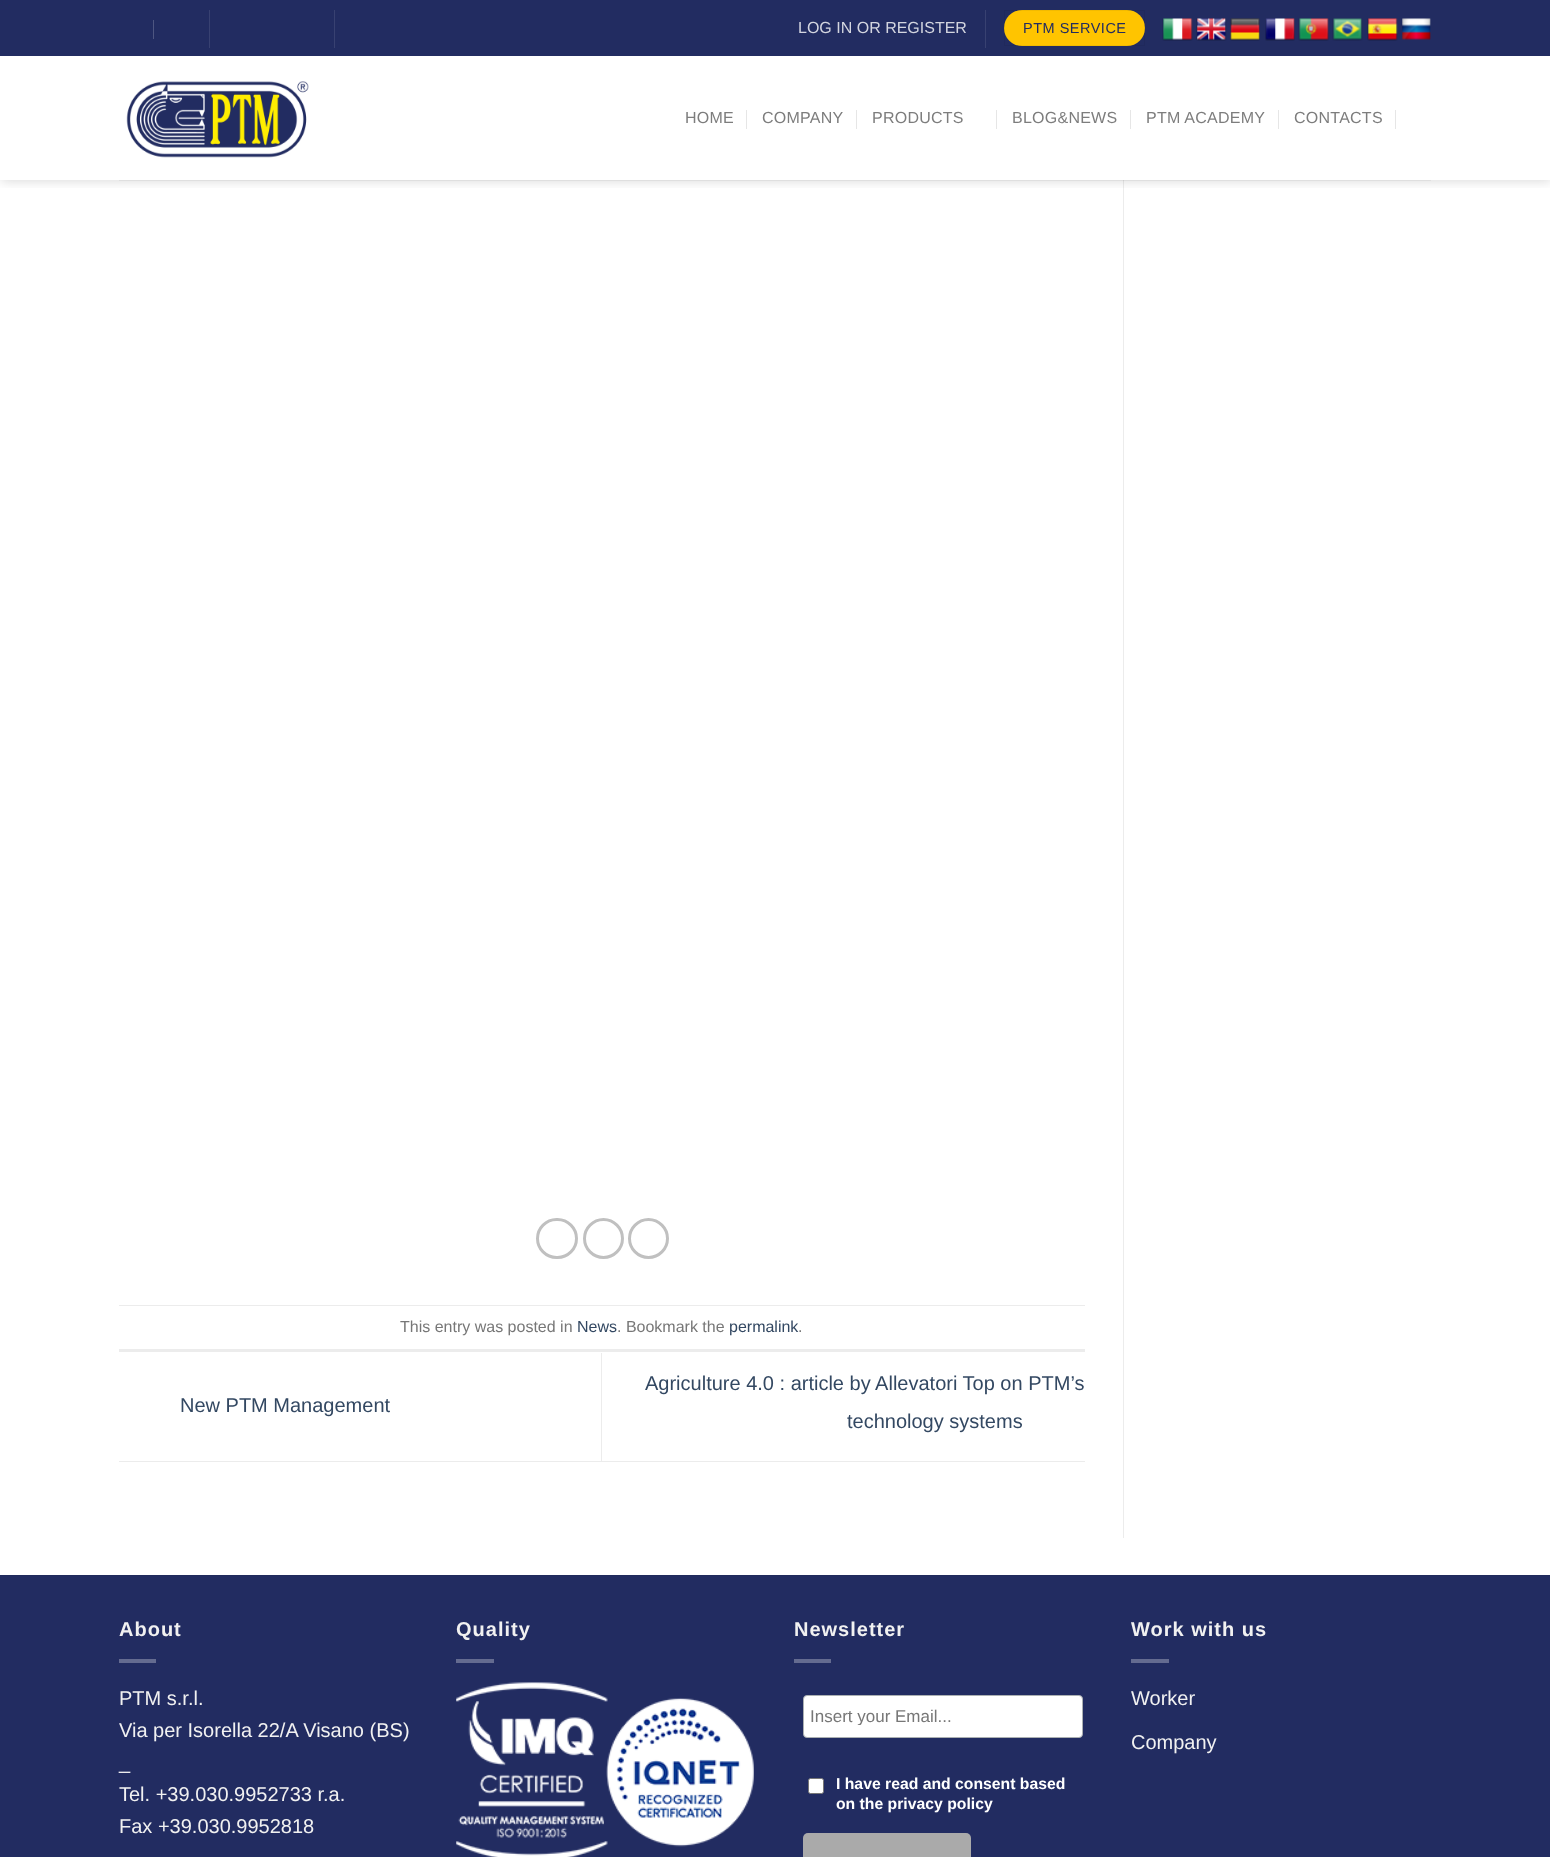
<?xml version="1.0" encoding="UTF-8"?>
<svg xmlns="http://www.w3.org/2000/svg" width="1550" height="1857">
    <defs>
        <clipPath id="clip1"><rect x="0" y="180" width="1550" height="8"/></clipPath>
        <filter id="blur1" x="-50%" y="-200%" width="200%" height="500%"><feGaussianBlur stdDeviation="6"/></filter>
        <clipPath id="clip2"><rect x="804" y="1706" width="277" height="19"/></clipPath>
    </defs>
    <rect width="100%" height="100%" fill="#FFFFFF"/>
    <rect x="1123" y="180" width="1" height="1358" fill="#ECECEC"/>
    <g clip-path="url(#clip1)">
        <rect x="1" y="1" width="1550" height="180" fill="#000000" fill-opacity="0.15" filter="url(#blur1)"/>
    </g>
    <rect x="0" y="0" width="1550" height="56" fill="#222C61"/>
    <rect x="153" y="20" width="1" height="19" fill="#4E5681"/>
    <rect x="209" y="10" width="1" height="38" fill="#384171"/>
    <rect x="334" y="10" width="1" height="38" fill="#384171"/>
    <text x="798" y="33" font-family="Liberation Sans" font-size="16" fill="#D3D5DF">LOG IN OR REGISTER</text>
    <rect x="985" y="10" width="1" height="38" fill="#384171"/>
    <rect x="1004" y="10" width="141" height="36" rx="18" fill="#FFC400"/>
    <rect x="1004.5" y="10.5" width="140" height="35" fill="none" stroke="#000000" stroke-opacity="0.05"/>
    <text x="1023" y="33" font-family="Liberation Sans" font-size="14.5" letter-spacing="0.5" fill="#222C61">PTM SERVICE</text>
    <image x="1162" y="18" width="31" height="23" href="img_01.png"/>
    <image x="1196" y="18" width="31" height="23" href="img_02.png"/>
    <image x="1230" y="18" width="30" height="23" href="img_03.png"/>
    <image x="1265" y="18" width="30" height="23" href="img_04.png"/>
    <image x="1298" y="18" width="31" height="23" href="img_05.png"/>
    <image x="1332" y="18" width="31" height="23" href="img_06.png"/>
    <image x="1367" y="18" width="31" height="23" href="img_07.png"/>
    <image x="1402" y="18" width="29" height="22" href="img_08.png"/>
    <image x="126" y="81" width="183" height="77" href="img_09.png"/>
    <text x="685" y="123" font-family="Liberation Sans" font-size="16" letter-spacing="0.25" fill="#7D7D7D">HOME</text>
    <rect x="746" y="110" width="1" height="19" fill="#E6E6E6"/>
    <text x="762" y="123" font-family="Liberation Sans" font-size="16" letter-spacing="0.25" fill="#7D7D7D">COMPANY</text>
    <rect x="856" y="110" width="1" height="19" fill="#E6E6E6"/>
    <text x="872" y="123" font-family="Liberation Sans" font-size="16" letter-spacing="0.25" fill="#7D7D7D">PRODUCTS</text>
    <rect x="996" y="110" width="1" height="19" fill="#E6E6E6"/>
    <text x="1012" y="123" font-family="Liberation Sans" font-size="16" letter-spacing="0.25" fill="#7D7D7D">BLOG&amp;NEWS</text>
    <rect x="1130" y="110" width="1" height="19" fill="#E6E6E6"/>
    <text x="1146" y="123" font-family="Liberation Sans" font-size="16" letter-spacing="0.25" fill="#7D7D7D">PTM ACADEMY</text>
    <rect x="1278" y="110" width="1" height="19" fill="#E6E6E6"/>
    <text x="1294" y="123" font-family="Liberation Sans" font-size="16" letter-spacing="0.25" fill="#7D7D7D">CONTACTS</text>
    <rect x="1395" y="110" width="1" height="19" fill="#E6E6E6"/>
    <rect x="119" y="180" width="1312" height="1" fill="#777777" fill-opacity="0.1"/>
    <rect x="537.5" y="1219.5" width="39" height="38" rx="19" fill="none" stroke="#C0C0C0" stroke-width="3"/>
    <circle cx="603.5" cy="1238.5" r="19" fill="none" stroke="#C0C0C0" stroke-width="3"/>
    <circle cx="648.5" cy="1238.5" r="19" fill="none" stroke="#C0C0C0" stroke-width="3"/>
    <rect x="119" y="1305" width="966" height="1" fill="#ECECEC"/>
    <rect x="119" y="1349" width="966" height="3" fill="#ECECEC"/>
    <text x="400" y="1332" font-family="Liberation Sans" font-size="16" fill="#777777">This entry was posted in</text>
    <text x="577" y="1332" font-family="Liberation Sans" font-size="16" fill="#334862">News</text>
    <text x="617" y="1332" font-family="Liberation Sans" font-size="16" fill="#777777">. Bookmark the</text>
    <text x="729" y="1332" font-family="Liberation Sans" font-size="16" fill="#334862">permalink</text>
    <text x="798" y="1332" font-family="Liberation Sans" font-size="16" fill="#777777">.</text>
    <rect x="119" y="1461" width="966" height="1" fill="#ECECEC"/>
    <text x="180" y="1412" font-family="Liberation Sans" font-size="20" fill="#334862">New PTM Management</text>
    <rect x="601" y="1353" width="1" height="108" fill="#ECECEC"/>
    <text x="645" y="1390" font-family="Liberation Sans" font-size="20" fill="#334862">Agriculture 4.0 : article by Allevatori Top on PTM’s</text>
    <text x="847" y="1428" font-family="Liberation Sans" font-size="20" fill="#334862">technology systems</text>
    <rect x="0" y="1576" width="1550" height="281" fill="#222C61"/>
    <rect x="0" y="1575" width="1550" height="1" fill="#202A5C"/>
    <text x="119" y="1636" font-family="Liberation Sans" font-size="20" font-weight="700" letter-spacing="1" fill="#F1F1F1">About</text>
    <rect x="119" y="1659" width="37" height="4" fill="#646B90"/>
    <text font-family="Liberation Sans" font-size="20" fill="#F1F1F1">
        <tspan x="119" y="1705">PTM s.r.l.</tspan>
        <tspan x="119" y="1737">Via per Isorella 22/A Visano (BS)</tspan>
        <tspan x="119" y="1769">_</tspan>
        <tspan x="119" y="1801">Tel. +39.030.9952733 r.a.</tspan>
        <tspan x="119" y="1833">Fax +39.030.9952818</tspan>
    </text>
    <text x="456" y="1636" font-family="Liberation Sans" font-size="20" font-weight="700" letter-spacing="1" fill="#F1F1F1">Quality</text>
    <rect x="456" y="1659" width="38" height="4" fill="#646B90"/>
    <image x="456" y="1682" width="298" height="175" href="img_10.png"/>
    <text x="794" y="1636" font-family="Liberation Sans" font-size="20" font-weight="700" letter-spacing="1" fill="#F1F1F1">Newsletter</text>
    <rect x="794" y="1659" width="37" height="4" fill="#646B90"/>
    <rect x="803.5" y="1695.5" width="279" height="42" rx="3.5" fill="#FFFFFF" stroke="#ABB0B2"/>
    <g clip-path="url(#clip2)">
        <text x="810" y="1722" font-family="Liberation Sans" font-size="17" fill="#777777">Insert your Email...</text>
    </g>
    <rect x="808.5" y="1778.5" width="15" height="15" rx="2" fill="#FFFFFF" stroke="#767676"/>
    <text font-family="Liberation Sans" font-size="15.75" font-weight="700" fill="#FFFFFF">
        <tspan x="836" y="1789">I have read and consent based</tspan>
        <tspan x="836" y="1809">on the privacy policy</tspan>
    </text>
    <rect x="803" y="1833" width="168" height="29" rx="5" fill="#AAAAAA"/>
    <text x="1131" y="1636" font-family="Liberation Sans" font-size="20" font-weight="700" letter-spacing="1" fill="#F1F1F1">Work with us</text>
    <rect x="1131" y="1659" width="38" height="4" fill="#646B90"/>
    <text x="1131" y="1705" font-family="Liberation Sans" font-size="20" fill="#F1F1F1">Worker</text>
    <text x="1131" y="1749" font-family="Liberation Sans" font-size="20" fill="#F1F1F1">Company</text>
</svg>
